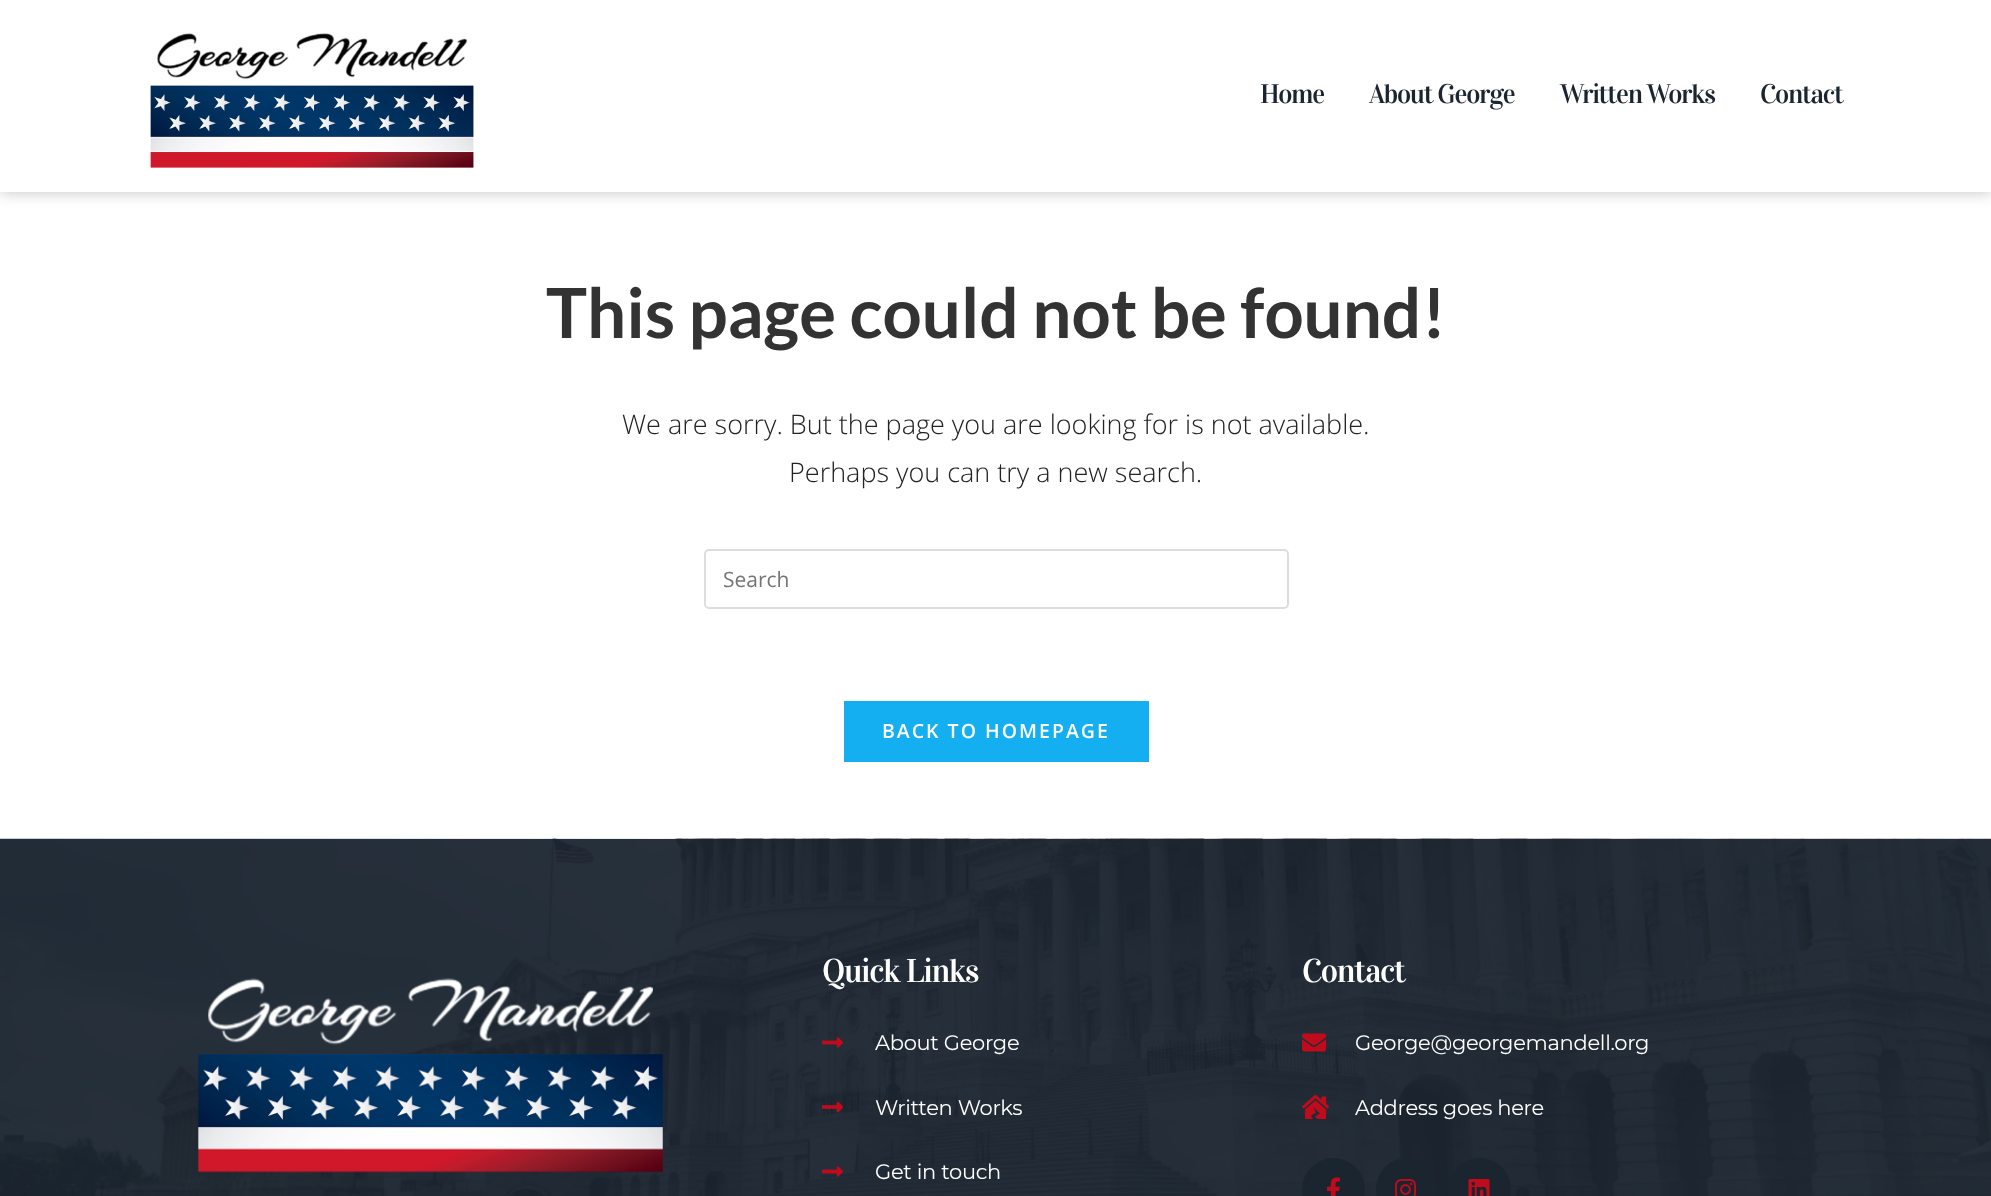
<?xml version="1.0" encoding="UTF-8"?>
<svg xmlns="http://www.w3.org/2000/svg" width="1991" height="1196">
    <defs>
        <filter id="blur1" x="-50%" y="-200%" width="200%" height="500%"><feGaussianBlur stdDeviation="7.5"/></filter>
    </defs>
    <rect width="100%" height="100%" fill="#FFFFFF"/>
    <rect x="0" y="0" width="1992" height="192" fill="#000000" fill-opacity="0.24" filter="url(#blur1)"/>
    <rect x="0" y="0" width="1991" height="192" fill="#FFFFFF"/>
    <image x="150" y="33" width="324" height="135" href="img_01.png"/>
    <text x="1260" y="103" font-family="Vidaloka" font-size="27" letter-spacing="-1.25" fill="#1B2530">Home</text>
    <text x="1369" y="103" font-family="Vidaloka" font-size="27" letter-spacing="-1.25" fill="#1B2530">About George</text>
    <text x="1560" y="103" font-family="Vidaloka" font-size="27" letter-spacing="-1.25" fill="#1B2530">Written Works</text>
    <text x="1760" y="103" font-family="Vidaloka" font-size="27" letter-spacing="-1.25" fill="#1B2530">Contact</text>
    <text x="546" y="338" font-family="Lato" font-size="69" font-weight="700" fill="#333333">This page could not be found!</text>
    <text x="622" y="434" font-family="Open Sans" font-size="27" font-weight="300" fill="#232323">We are sorry. But the page you are looking for is not available.</text>
    <text x="789" y="482" font-family="Open Sans" font-size="27" font-weight="300" fill="#232323">Perhaps you can try a new search.</text>
    <rect x="705" y="550" width="583" height="58" rx="4" fill="none" stroke="#DDDDDD" stroke-width="2"/>
    <text x="723" y="587" font-family="Open Sans" font-size="21" fill="#757575">Search</text>
    <rect x="844" y="701" width="305" height="61" fill="#13AFF0"/>
    <text x="882" y="738" font-family="Open Sans" font-size="19.5" font-weight="600" letter-spacing="2" fill="#FFFFFF">BACK TO HOMEPAGE</text>
    <image x="0" y="838" width="1991" height="358" href="img_02.png"/>
    <image x="198" y="978" width="465" height="195" href="img_03.png"/>
    <text x="822" y="982" font-family="Vidaloka" font-size="33" letter-spacing="-1.25" fill="#FFFFFF">Quick Links</text>
    <image x="822" y="1037" width="21" height="11" href="img_04.png"/>
    <text x="875" y="1050" font-family="Montserrat" font-size="21" letter-spacing="-0.3" fill="#FFFFFF">About George</text>
    <image x="822" y="1101" width="21" height="12" href="img_05.png"/>
    <text x="875" y="1115" font-family="Montserrat" font-size="21" letter-spacing="-0.3" fill="#FFFFFF">Written Works</text>
    <image x="822" y="1166" width="21" height="11" href="img_06.png"/>
    <text x="875" y="1179" font-family="Montserrat" font-size="21" letter-spacing="-0.3" fill="#FFFFFF">Get in touch</text>
    <text x="1302" y="982" font-family="Vidaloka" font-size="33" letter-spacing="-1.25" fill="#FFFFFF">Contact</text>
    <image x="1302" y="1033" width="24" height="19" href="img_07.png"/>
    <text x="1355" y="1050" font-family="Montserrat" font-size="21" letter-spacing="-0.3" fill="#FFFFFF">George@georgemandell.org</text>
    <image x="1302" y="1095" width="27" height="24" href="img_08.png"/>
    <text x="1355" y="1115" font-family="Montserrat" font-size="21" letter-spacing="-0.3" fill="#FFFFFF">Address goes here</text>
    <circle cx="1333.5" cy="1189.5" r="31.5" fill="#1B2530"/>
    <image x="1327" y="1177" width="13" height="19" href="img_09.png"/>
    <rect x="1376" y="1158" width="61" height="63" rx="30.5" fill="#1B2530"/>
    <image x="1395" y="1178" width="22" height="18" href="img_10.png"/>
    <circle cx="1479.5" cy="1189.5" r="31.5" fill="#1B2530"/>
    <image x="1468" y="1179" width="22" height="17" href="img_11.png"/>
</svg>
